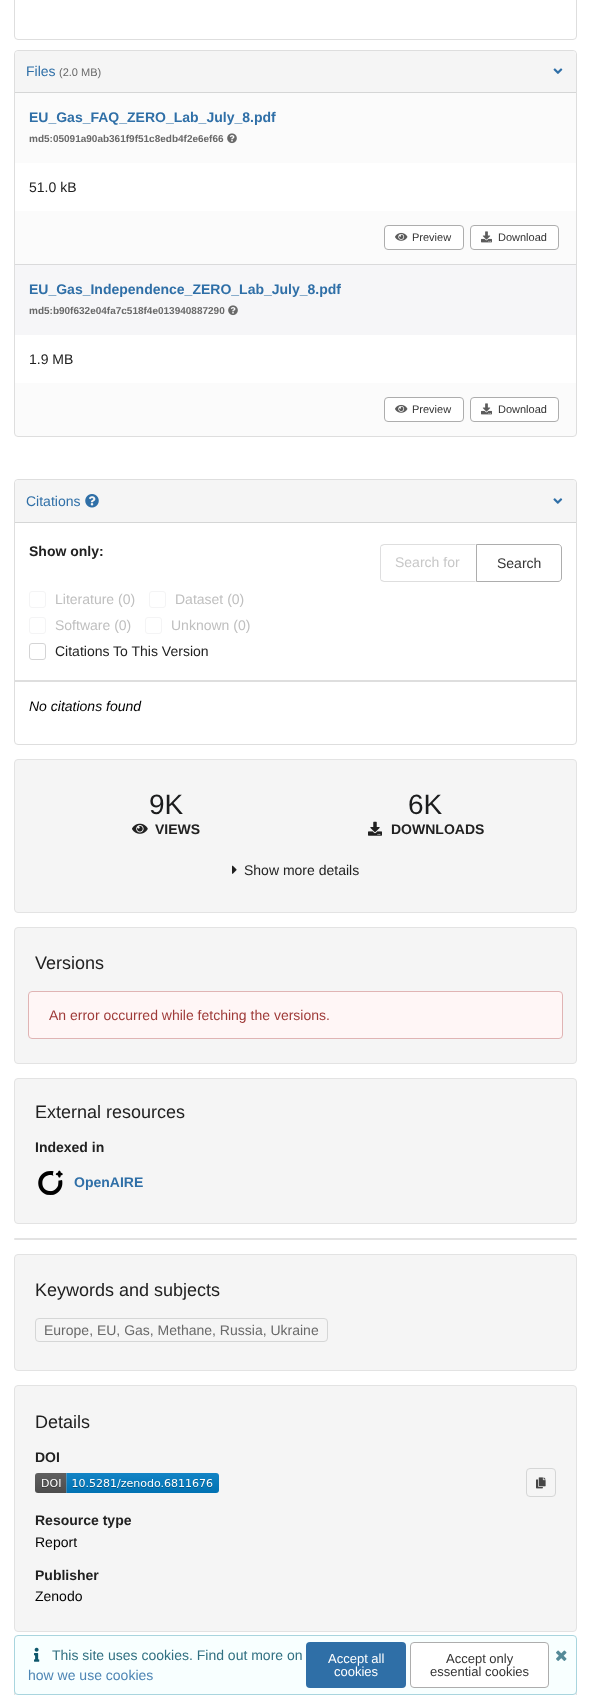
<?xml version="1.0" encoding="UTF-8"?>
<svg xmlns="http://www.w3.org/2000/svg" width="591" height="1695">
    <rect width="100%" height="100%" fill="#FFFFFF"/>
    <rect x="14.5" y="-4.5" width="562" height="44" rx="3.5" fill="none" stroke="#DEDEDE"/>
    <rect x="14.5" y="50.5" width="562" height="386" rx="3.5" fill="none" stroke="#DEDEDE"/>
    <path d="M 19 51 H 572 C 574 51 576 53 576 55 V 93 H 15 V 55 C 15 53 17 51 19 51 Z" fill="#F5F5F5"/>
    <rect x="15" y="92" width="561" height="1" fill="#D5D6D6"/>
    <text x="26" y="76" font-family="Liberation Sans" font-size="14" fill="#2F6FA7">Files</text>
    <text x="59" y="76" font-family="Liberation Sans" font-size="11" fill="#696969">(2.0 MB)</text>
    <image x="553" y="68" width="10" height="6" href="img_01.png"/>
    <rect x="15" y="93" width="561" height="70" fill="#FBFBFB"/>
    <text x="29" y="122" font-family="Liberation Sans" font-size="14" font-weight="700" fill="#2F6FA7">EU_Gas_FAQ_ZERO_Lab_July_8.pdf</text>
    <text x="29" y="142" font-family="Liberation Sans" font-size="10" font-weight="700" fill="#696969">md5:05091a90ab361f9f51c8edb4f2e6ef66</text>
    <image x="227" y="133" width="10" height="11" href="img_02.png"/>
    <text x="29" y="192" font-family="Liberation Sans" font-size="14" fill="#212121">51.0 kB</text>
    <rect x="15" y="211" width="561" height="53" fill="#FBFBFB"/>
    <rect x="384.5" y="225.5" width="79" height="24" rx="3.5" fill="#FFFFFF" stroke="#ADADAD"/>
    <image x="395" y="232" width="13" height="9" href="img_03.png"/>
    <text x="412" y="241" font-family="Liberation Sans" font-size="11" fill="#333333">Preview</text>
    <rect x="470.5" y="225.5" width="88" height="24" rx="3.5" fill="#FFFFFF" stroke="#ADADAD"/>
    <image x="481" y="231" width="11" height="12" href="img_04.png"/>
    <text x="498" y="241" font-family="Liberation Sans" font-size="11" fill="#333333">Download</text>
    <rect x="15" y="264" width="561" height="1" fill="#DADADB"/>
    <rect x="15" y="265" width="561" height="70" fill="#F6F6F8"/>
    <text x="29" y="294" font-family="Liberation Sans" font-size="14" font-weight="700" fill="#2F6FA7">EU_Gas_Independence_ZERO_Lab_July_8.pdf</text>
    <text x="29" y="314" font-family="Liberation Sans" font-size="10" font-weight="700" fill="#696969">md5:b90f632e04fa7c518f4e013940887290</text>
    <image x="228" y="305" width="10" height="11" href="img_05.png"/>
    <text x="29" y="364" font-family="Liberation Sans" font-size="14" fill="#212121">1.9 MB</text>
    <rect x="15" y="383" width="561" height="53" fill="#E2E2E4" fill-opacity="0.15"/>
    <rect x="384.5" y="397.5" width="79" height="24" rx="3.5" fill="#FFFFFF" stroke="#ADADAD"/>
    <image x="395" y="404" width="13" height="9" href="img_03.png"/>
    <text x="412" y="413" font-family="Liberation Sans" font-size="11" fill="#333333">Preview</text>
    <rect x="470.5" y="397.5" width="88" height="24" rx="3.5" fill="#FFFFFF" stroke="#ADADAD"/>
    <image x="481" y="403" width="11" height="12" href="img_04.png"/>
    <text x="498" y="413" font-family="Liberation Sans" font-size="11" fill="#333333">Download</text>
    <rect x="14.5" y="479.5" width="562" height="265" rx="3.5" fill="none" stroke="#DEDEDE"/>
    <path d="M 19 480 H 572 C 574 480 576 482 576 484 V 523 H 15 V 484 C 15 482 17 480 19 480 Z" fill="#F5F5F5"/>
    <rect x="15" y="522" width="561" height="1" fill="#D5D6D6"/>
    <text x="26" y="506" font-family="Liberation Sans" font-size="14" fill="#2F6FA7">Citations</text>
    <image x="85" y="494" width="14" height="14" href="img_06.png"/>
    <image x="553" y="498" width="10" height="6" href="img_07.png"/>
    <text x="29" y="556" font-family="Liberation Sans" font-size="14" font-weight="700" fill="#212121">Show only:</text>
    <rect x="29.5" y="591.5" width="16" height="16" rx="2.5" fill="none" stroke="#F4F4F5"/>
    <text x="55" y="604" font-family="Liberation Sans" font-size="14" fill="#BFBFBF">Literature (0)</text>
    <rect x="149.5" y="591.5" width="16" height="16" rx="2.5" fill="none" stroke="#F4F4F5"/>
    <text x="175" y="604" font-family="Liberation Sans" font-size="14" fill="#BFBFBF">Dataset (0)</text>
    <rect x="29.5" y="617.5" width="16" height="16" rx="2.5" fill="none" stroke="#F4F4F5"/>
    <text x="55" y="630" font-family="Liberation Sans" font-size="14" fill="#BFBFBF">Software (0)</text>
    <rect x="145.5" y="617.5" width="16" height="16" rx="2.5" fill="none" stroke="#F4F4F5"/>
    <text x="171" y="630" font-family="Liberation Sans" font-size="14" fill="#BFBFBF">Unknown (0)</text>
    <rect x="29.5" y="643.5" width="16" height="16" rx="2.5" fill="none" stroke="#D4D4D5"/>
    <text x="55" y="656" font-family="Liberation Sans" font-size="14" fill="#212121">Citations To This Version</text>
    <path d="M 384 544 L 381 545 L 382 546 L 384 545 H 475 L 476 544 Z" fill="#DEDEDE"/>
    <path d="M 476 582 L 475 581 H 384 L 382 580 L 381 581 L 384 582 Z" fill="#DEDEDE"/>
    <path d="M 380 548 V 578 C 380 579 380.5 580 381 581 L 382 580 C 381 580 381 579 381 578 V 548 C 381 547 381 546 382 546 L 381 545 C 380.5 546 380 547 380 548 Z" fill="#222426" fill-opacity="0.15"/>
    <text x="395" y="567" font-family="Liberation Sans" font-size="14" fill="#C7C7C7">Search for</text>
    <path d="M 476.5 544.5 H 558 C 560 544.5 561.5 546 561.5 548 V 578 C 561.5 580 560 581.5 558 581.5 H 476.5 Z" fill="none" stroke="#ADADAD"/>
    <text x="497" y="568" font-family="Liberation Sans" font-size="14" fill="#333333">Search</text>
    <rect x="15" y="680" width="561" height="2" fill="#DEDEDE"/>
    <text x="29" y="711" font-family="Liberation Sans" font-size="14" font-style="italic" fill="#000000">No citations found</text>
    <rect x="14.5" y="759.5" width="562" height="153" rx="3.5" fill="#F5F5F5" stroke="#E3E3E3"/>
    <text x="149" y="814" font-family="Liberation Sans" font-size="28" fill="#1B1C1D">9K</text>
    <image x="132" y="823" width="16" height="11" href="img_08.png"/>
    <text x="155" y="834" font-family="Liberation Sans" font-size="14" font-weight="700" fill="#212121">VIEWS</text>
    <text x="408" y="814" font-family="Liberation Sans" font-size="28" fill="#1B1C1D">6K</text>
    <image x="368" y="821" width="14" height="15" href="img_09.png"/>
    <text x="391" y="834" font-family="Liberation Sans" font-size="14" font-weight="700" fill="#212121">DOWNLOADS</text>
    <image x="232" y="865" width="5" height="9" href="img_10.png"/>
    <text x="244" y="875" font-family="Liberation Sans" font-size="14" fill="#212121">Show more details</text>
    <rect x="14.5" y="927.5" width="562" height="136" rx="3.5" fill="#F5F5F5" stroke="#E3E3E3"/>
    <text x="35" y="969" font-family="Liberation Sans" font-size="18" fill="#212121">Versions</text>
    <rect x="28.5" y="991.5" width="534" height="47" rx="3.5" fill="#FFF6F6" stroke="#E0B4B4"/>
    <text x="49" y="1020" font-family="Liberation Sans" font-size="14" fill="#9F3A38">An error occurred while fetching the versions.</text>
    <rect x="14.5" y="1078.5" width="562" height="145" rx="3.5" fill="#F5F5F5" stroke="#E3E3E3"/>
    <text x="35" y="1118" font-family="Liberation Sans" font-size="18" fill="#212121">External resources</text>
    <text x="35" y="1152" font-family="Liberation Sans" font-size="14" font-weight="700" fill="#212121">Indexed in</text>
    <image x="38" y="1170" width="25" height="25" href="img_11.png"/>
    <text x="74" y="1187" font-family="Liberation Sans" font-size="14" font-weight="700" fill="#2F6FA7">OpenAIRE</text>
    <rect x="14" y="1238" width="563" height="2" rx="1" fill="#E3E3E3"/>
    <rect x="14.5" y="1254.5" width="562" height="116" rx="3.5" fill="#F5F5F5" stroke="#E3E3E3"/>
    <text x="35" y="1296" font-family="Liberation Sans" font-size="18" fill="#212121">Keywords and subjects</text>
    <rect x="35.5" y="1318.5" width="292" height="23" rx="3.5" fill="none" stroke="#D5D6D6"/>
    <text x="44" y="1335" font-family="Liberation Sans" font-size="14" fill="#696969">Europe, EU, Gas, Methane, Russia, Ukraine</text>
    <rect x="14.5" y="1385.5" width="562" height="246" rx="3.5" fill="#F5F5F5" stroke="#E3E3E3"/>
    <text x="35" y="1428" font-family="Liberation Sans" font-size="18" fill="#212121">Details</text>
    <text x="35" y="1462" font-family="Liberation Sans" font-size="14" font-weight="700" fill="#212121">DOI</text>
    <image x="35" y="1473" width="184" height="20" href="img_12.png"/>
    <rect x="526.5" y="1468.5" width="29" height="28" rx="3.5" fill="none" stroke="#D5D6D6"/>
    <image x="536" y="1477" width="10" height="12" href="img_13.png"/>
    <text x="35" y="1525" font-family="Liberation Sans" font-size="14" font-weight="700" fill="#212121">Resource type</text>
    <text x="35" y="1547" font-family="Liberation Sans" font-size="14" fill="#000000">Report</text>
    <text x="35" y="1580" font-family="Liberation Sans" font-size="14" font-weight="700" fill="#212121">Publisher</text>
    <text x="35" y="1601" font-family="Liberation Sans" font-size="14" fill="#000000">Zenodo</text>
    <rect x="15" y="1693" width="561" height="2" fill="#F5F5F5"/>
    <rect x="14.5" y="1646.5" width="562" height="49" fill="none" stroke="#E3E3E3"/>
    <rect x="14.5" y="1635.5" width="562" height="59" rx="3.5" fill="#F8FFFF" stroke="#A9D5DE"/>
    <image x="34" y="1647" width="6" height="15" href="img_14.png"/>
    <text x="52" y="1660" font-family="Liberation Sans" font-size="14" fill="#317082">This site uses cookies. Find out more on</text>
    <text x="28" y="1680" font-family="Liberation Sans" font-size="14" fill="#4D85B4">how we use cookies</text>
    <rect x="306" y="1642" width="100" height="46" rx="4" fill="#2F6FA7"/>
    <text x="328" y="1663" font-family="Liberation Sans" font-size="13" fill="#FFFFFF">Accept all</text>
    <text x="334" y="1676" font-family="Liberation Sans" font-size="13" fill="#FFFFFF">cookies</text>
    <rect x="410.5" y="1642.5" width="138" height="45" rx="3.5" fill="#FFFFFF" stroke="#ADADAD"/>
    <text x="446" y="1663" font-family="Liberation Sans" font-size="13" fill="#333333">Accept only</text>
    <text x="430" y="1676" font-family="Liberation Sans" font-size="13" fill="#333333">essential cookies</text>
    <image x="556" y="1650" width="11" height="11" href="img_15.png"/>
</svg>
